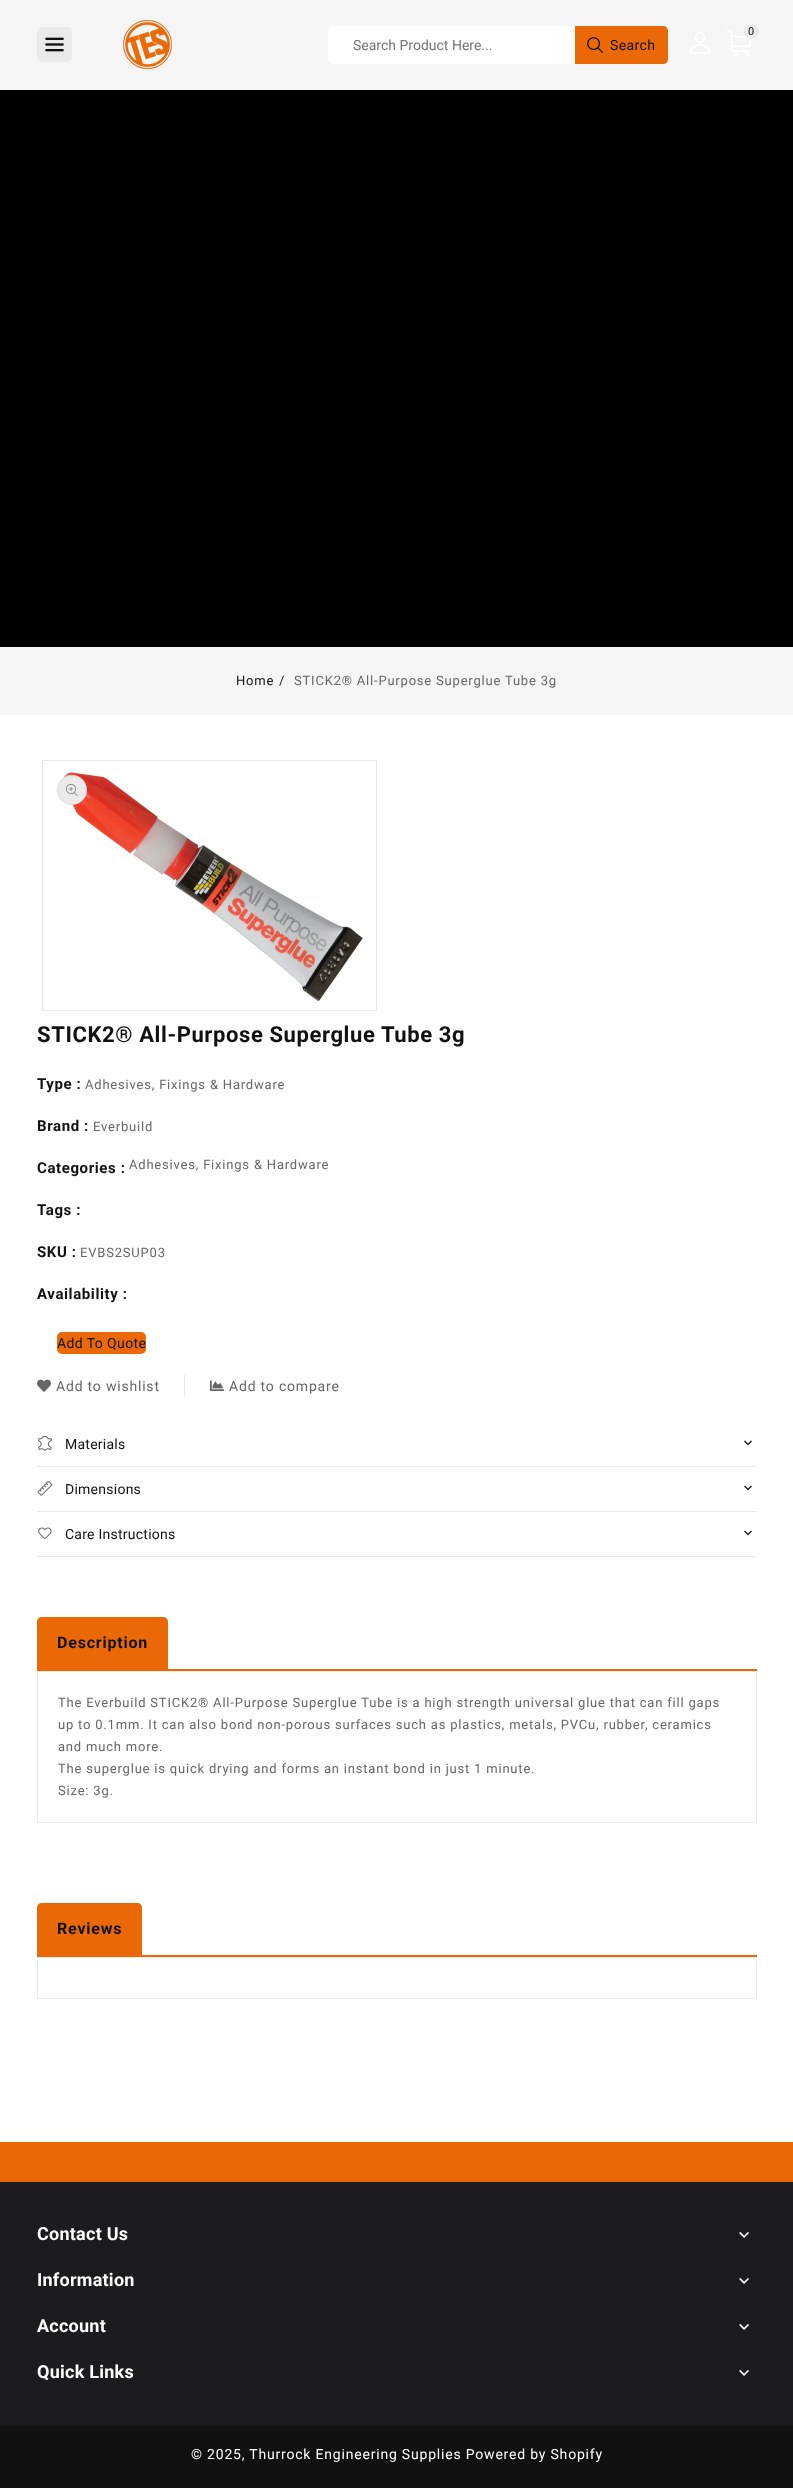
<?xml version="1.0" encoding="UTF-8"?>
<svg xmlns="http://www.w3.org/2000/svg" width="793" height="2488">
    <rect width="100%" height="100%" fill="#FFFFFF"/>
    <rect x="0" y="90" width="793" height="557" fill="#000000"/>
    <rect x="0" y="0" width="793" height="90" fill="#F5F5F5"/>
    <rect x="37" y="27" width="35" height="35" rx="5" fill="#EAEAEA"/>
    <image x="45" y="37" width="19" height="15" href="img_01.png"/>
    <image x="123" y="20" width="49" height="49" href="img_02.png"/>
    <image x="690" y="32" width="20" height="22" href="img_03.png"/>
    <image x="727" y="30" width="24" height="26" href="img_04.png"/>
    <circle cx="751.5" cy="31.5" r="7.5" fill="#EAEAEA"/>
    <text x="748" y="35" font-family="Roboto" font-size="11" letter-spacing="0.25" fill="#111111">0</text>
    <rect x="328" y="26" width="340" height="38" rx="5" fill="#FFFFFF"/>
    <text x="353" y="50" font-family="Roboto" font-size="14" fill="#757575">Search Product Here...</text>
    <path d="M 575 26 H 663 C 666 26 668 28 668 31 V 59 C 668 62 666 64 663 64 H 575 Z" fill="#EA6906"/>
    <image x="587" y="37" width="16" height="16" href="img_05.png"/>
    <text x="610" y="50" font-family="Roboto" font-size="14" letter-spacing="0.4" fill="#111111">Search</text>
    <rect x="0" y="647" width="793" height="68" fill="#F5F5F5"/>
    <text x="236" y="685" font-family="Roboto" font-size="13" letter-spacing="0.8" fill="#111111">Home</text>
    <text x="279" y="685" font-family="Roboto" font-size="13" letter-spacing="0.8" fill="#111111">/</text>
    <text x="294" y="685" font-family="Roboto" font-size="13" letter-spacing="0.8" fill="#666666">STICK2® All-Purpose Superglue Tube 3g</text>
    <rect x="42.5" y="760.5" width="334" height="250" fill="none" stroke="#EAEAEA"/>
    <image x="62" y="769" width="302" height="233" href="img_06.png"/>
    <circle cx="72" cy="790" r="15" fill="#EAEAEA"/>
    <circle cx="72" cy="790" r="14.5" fill="none" stroke="#666666" stroke-opacity="0.1"/>
    <image x="66" y="784" width="12" height="12" href="img_07.png"/>
    <text x="37" y="1042" font-family="Roboto" font-size="22" font-weight="700" letter-spacing="0.6" fill="#111111">STICK2® All-Purpose Superglue Tube 3g</text>
    <text x="37" y="1089" font-family="Roboto" font-size="15" font-weight="700" letter-spacing="0.6" fill="#111111">Type :</text>
    <text x="85" y="1089" font-family="Roboto" font-size="13" letter-spacing="0.8" fill="#666666">Adhesives, Fixings &amp; Hardware</text>
    <text x="37" y="1131" font-family="Roboto" font-size="15" font-weight="700" letter-spacing="0.6" fill="#111111">Brand :</text>
    <text x="93" y="1131" font-family="Roboto" font-size="13" letter-spacing="0.8" fill="#666666">Everbuild</text>
    <text x="37" y="1173" font-family="Roboto" font-size="15" font-weight="700" letter-spacing="0.6" fill="#111111">Categories :</text>
    <text x="129" y="1169" font-family="Roboto" font-size="13" letter-spacing="0.8" fill="#666666">Adhesives, Fixings &amp; Hardware</text>
    <text x="37" y="1215" font-family="Roboto" font-size="15" font-weight="700" letter-spacing="0.6" fill="#111111">Tags :</text>
    <text x="37" y="1257" font-family="Roboto" font-size="15" font-weight="700" letter-spacing="0.6" fill="#111111">SKU :</text>
    <text x="80" y="1257" font-family="Roboto" font-size="13" letter-spacing="0.8" fill="#666666">EVBS2SUP03</text>
    <text x="37" y="1299" font-family="Roboto" font-size="15" font-weight="700" letter-spacing="0.6" fill="#111111">Availability :</text>
    <rect x="57" y="1332" width="89" height="22" rx="5" fill="#EA6906"/>
    <text x="57" y="1348" font-family="Roboto" font-size="14" letter-spacing="0.4" fill="#111111">Add To Quote</text>
    <rect x="184" y="1375" width="1" height="22" fill="#EAEAEA"/>
    <image x="37" y="1379" width="14" height="13" href="img_08.png"/>
    <text x="56" y="1391" font-family="Roboto" font-size="14" letter-spacing="0.8" fill="#666666">Add to wishlist</text>
    <image x="210" y="1380" width="14" height="11" href="img_09.png"/>
    <text x="229" y="1391" font-family="Roboto" font-size="14" letter-spacing="0.8" fill="#666666">Add to compare</text>
    <rect x="37" y="1466" width="720" height="1" fill="#EAEAEA"/>
    <image x="38" y="1436" width="14" height="15" href="img_10.png"/>
    <text x="65" y="1449" font-family="Roboto" font-size="14" letter-spacing="0.25" fill="#111111">Materials</text>
    <image x="744" y="1440" width="8" height="6" href="img_11.png"/>
    <rect x="37" y="1511" width="720" height="1" fill="#EAEAEA"/>
    <image x="37" y="1481" width="16" height="15" href="img_12.png"/>
    <text x="65" y="1494" font-family="Roboto" font-size="14" letter-spacing="0.25" fill="#111111">Dimensions</text>
    <image x="744" y="1485" width="8" height="6" href="img_11.png"/>
    <rect x="37" y="1556" width="720" height="1" fill="#EAEAEA"/>
    <image x="38" y="1527" width="14" height="13" href="img_13.png"/>
    <text x="65" y="1539" font-family="Roboto" font-size="14" letter-spacing="0.25" fill="#111111">Care Instructions</text>
    <image x="744" y="1530" width="8" height="6" href="img_11.png"/>
    <rect x="37" y="1669" width="720" height="2" fill="#EA6906"/>
    <path d="M 42 1617 H 163 C 166 1617 168 1619 168 1622 V 1669 H 37 V 1622 C 37 1619 39 1617 42 1617 Z" fill="#EA6906"/>
    <text x="57" y="1648" font-family="Roboto" font-size="16" font-weight="700" letter-spacing="0.8" fill="#111111">Description</text>
    <rect x="37.5" y="1671.5" width="719" height="151" fill="none" stroke="#EAEAEA"/>
    <text font-family="Roboto" font-size="13" letter-spacing="0.8" fill="#666666">
        <tspan x="58" y="1707">The Everbuild STICK2® All-Purpose Superglue Tube is a high strength universal glue that can fill gaps</tspan>
        <tspan x="58" y="1729">up to 0.1mm. It can also bond non-porous surfaces such as plastics, metals, PVCu, rubber, ceramics</tspan>
        <tspan x="58" y="1751">and much more.</tspan>
        <tspan x="58" y="1773">The superglue is quick drying and forms an instant bond in just 1 minute.</tspan>
        <tspan x="58" y="1795">Size: 3g.</tspan>
    </text>
    <rect x="37" y="1955" width="720" height="2" fill="#EA6906"/>
    <path d="M 42 1903 H 137 C 140 1903 142 1905 142 1908 V 1955 H 37 V 1908 C 37 1905 39 1903 42 1903 Z" fill="#EA6906"/>
    <text x="57" y="1934" font-family="Roboto" font-size="16" font-weight="700" letter-spacing="0.8" fill="#111111">Reviews</text>
    <rect x="37.5" y="1957.5" width="719" height="41" fill="none" stroke="#EAEAEA"/>
    <rect x="0" y="2142" width="793" height="40" fill="#EA6906"/>
    <rect x="0" y="2182" width="793" height="244" fill="#1C1C1E"/>
    <text x="37" y="2240" font-family="Roboto" font-size="18" font-weight="700" letter-spacing="0.25" fill="#FFFFFF">Contact Us</text>
    <image x="739" y="2231" width="10" height="7" href="img_14.png"/>
    <text x="37" y="2286" font-family="Roboto" font-size="18" font-weight="700" letter-spacing="0.25" fill="#FFFFFF">Information</text>
    <image x="739" y="2277" width="10" height="7" href="img_14.png"/>
    <text x="37" y="2332" font-family="Roboto" font-size="18" font-weight="700" letter-spacing="0.25" fill="#FFFFFF">Account</text>
    <image x="739" y="2323" width="10" height="7" href="img_14.png"/>
    <text x="37" y="2378" font-family="Roboto" font-size="18" font-weight="700" letter-spacing="0.25" fill="#FFFFFF">Quick Links</text>
    <image x="739" y="2369" width="10" height="7" href="img_14.png"/>
    <rect x="0" y="2426" width="793" height="62" fill="#111111"/>
    <text x="191" y="2459" font-family="Roboto" font-size="14" letter-spacing="0.8" fill="#FFFFFF">© 2025, Thurrock Engineering Supplies Powered by Shopify</text>
</svg>
